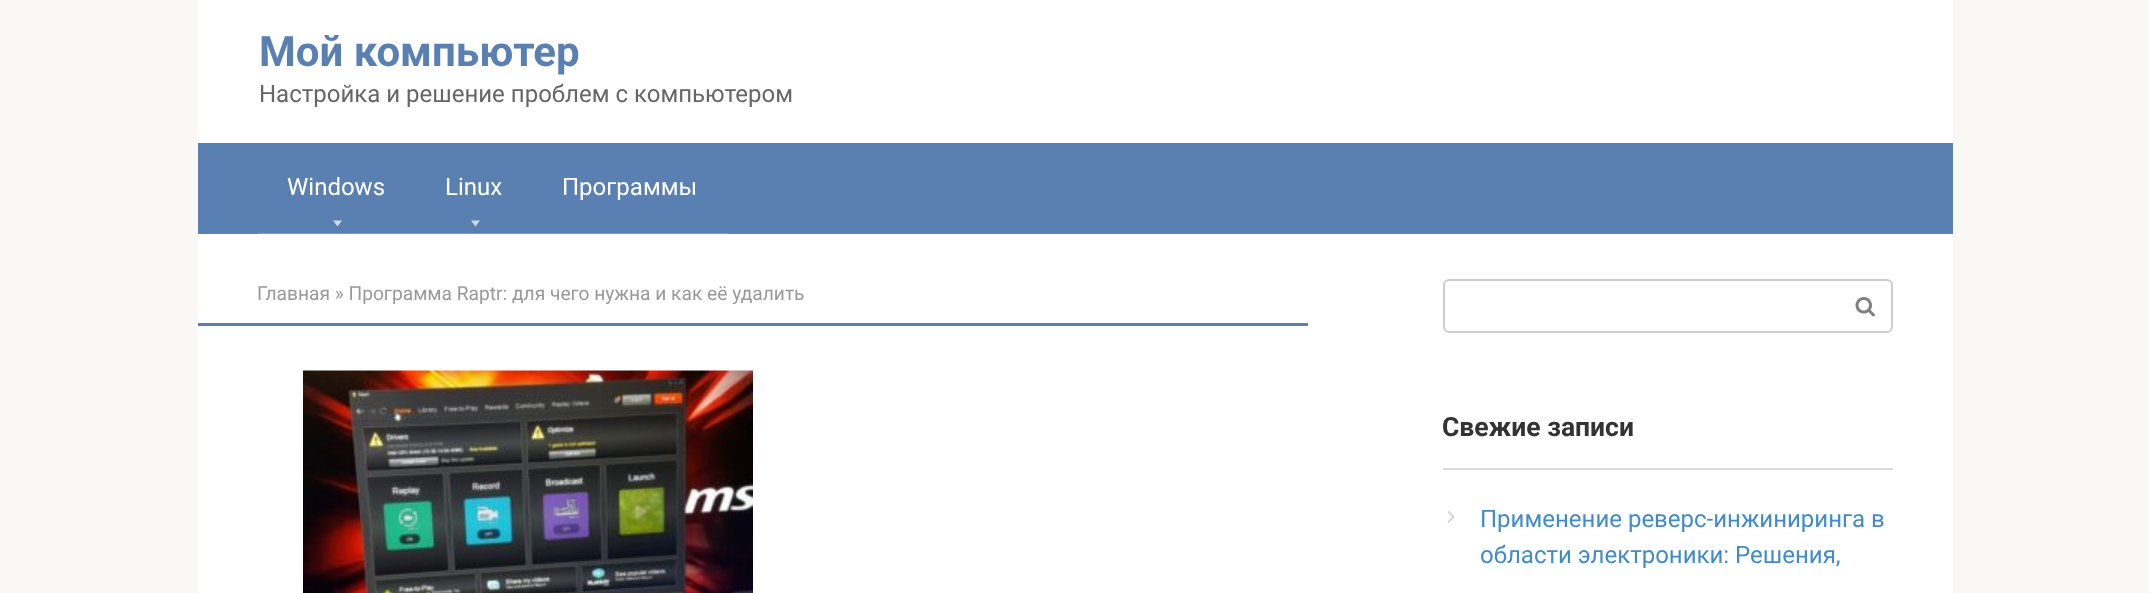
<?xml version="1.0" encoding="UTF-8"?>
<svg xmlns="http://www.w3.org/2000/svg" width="2149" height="593">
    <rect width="100%" height="100%" fill="#F9F8F5"/>
    <rect x="198" y="0" width="1755" height="143" fill="#FFFFFF"/>
    <text x="259" y="66" font-family="Roboto" font-size="42" font-weight="700" fill="#5A80B1">Мой компьютер</text>
    <text x="259" y="102" font-family="Roboto" font-size="24" fill="#666666">Настройка и решение проблем с компьютером</text>
    <rect x="198" y="143" width="1755" height="91" fill="#5A80B1"/>
    <rect x="258" y="233" width="470" height="1" fill="#7B99C1"/>
    <text x="287" y="195" font-family="Roboto" font-size="24" fill="#FFFFFF">Windows</text>
    <path d="M 333 220.5 H 342 L 337.5 226.5 Z" fill="#CED9E8"/>
    <text x="445" y="195" font-family="Roboto" font-size="24" fill="#FFFFFF">Linux</text>
    <path d="M 471 220.5 H 480 L 475.5 226.5 Z" fill="#CED9E8"/>
    <text x="562" y="195" font-family="Roboto" font-size="24" fill="#FFFFFF">Программы</text>
    <rect x="198" y="234" width="1755" height="359" fill="#FFFFFF"/>
    <text x="257" y="300" font-family="Roboto" font-size="19.2" fill="#999999">Главная » Программа Raptr: для чего нужна и как её удалить</text>
    <rect x="198" y="323" width="1110" height="3" fill="#5A80B1"/>
    <image x="303" y="370" width="450" height="223" href="img_01.png"/>
    <rect x="1444" y="280" width="448" height="52" rx="5" fill="none" stroke="#CCCCCC" stroke-width="2"/>
    <image x="1855" y="297" width="20" height="20" href="img_02.png"/>
    <rect x="1443" y="468" width="450" height="2" fill="#DADADA"/>
    <text x="1442" y="436" font-family="Roboto" font-size="26.5" font-weight="700" fill="#333333">Свежие записи</text>
    <image x="1447" y="511" width="8" height="12" href="img_03.png"/>
    <text font-family="Roboto" font-size="24" fill="#428BCA">
        <tspan x="1480" y="527">Применение реверс-инжиниринга в</tspan>
        <tspan x="1480" y="563">области электроники: Решения,</tspan>
    </text>
</svg>
